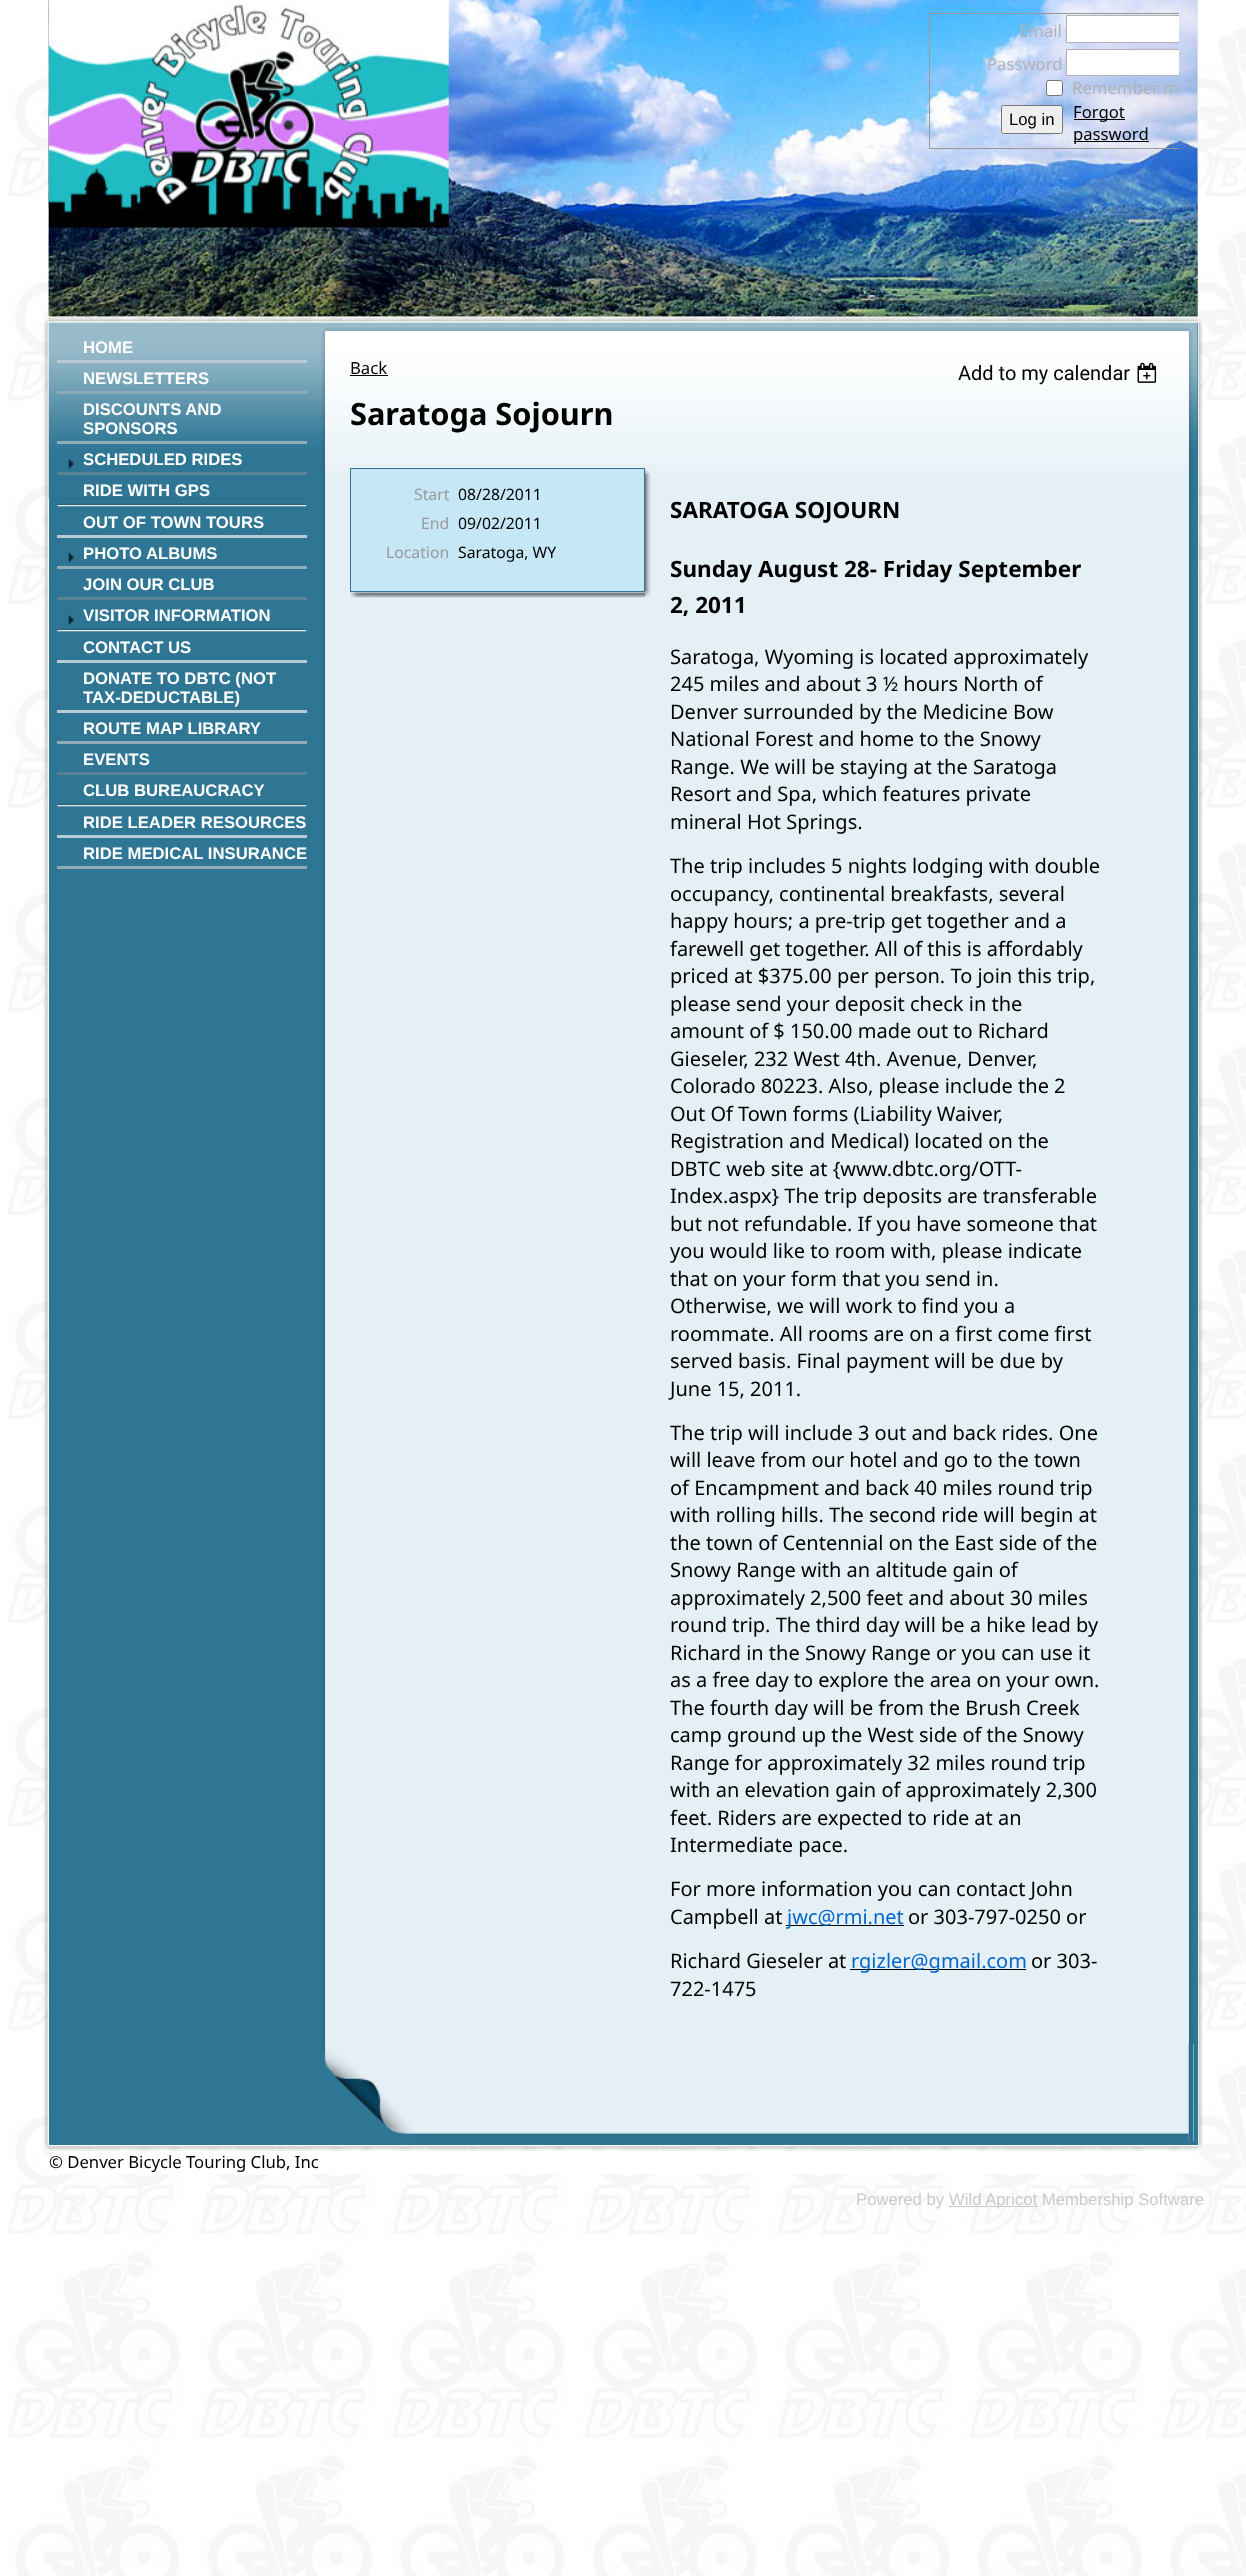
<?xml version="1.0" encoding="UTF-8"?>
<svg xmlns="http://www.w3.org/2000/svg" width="1246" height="2576">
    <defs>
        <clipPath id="clip1"><rect x="929" y="13" width="250" height="136"/></clipPath>
    </defs>
    <rect width="100%" height="100%" fill="#FFFFFF"/>
    <image x="7" y="10" width="1239" height="2566" href="img_01.png"/>
    <image x="48" y="0" width="1150" height="317" href="img_02.png"/>
    <image x="48" y="0" width="1150" height="317" href="img_03.png"/>
    <image x="48" y="0" width="401" height="228" href="img_04.png"/>
    <image x="43" y="322" width="6" height="1823" href="img_05.png"/>
    <image x="1197" y="322" width="6" height="1823" href="img_06.png"/>
    <rect x="49" y="323" width="1149" height="1822" fill="#2F7694"/>
    <image x="48" y="322" width="1150" height="177" href="img_07.png"/>
    <rect x="929" y="13" width="250" height="1" fill="#999999"/>
    <rect x="929" y="148" width="250" height="1" fill="#999999"/>
    <rect x="929" y="13" width="1" height="136" fill="#999999"/>
    <text x="1019" y="37" font-family="Noto Sans" font-size="16.7" fill="#B2B2B2">Email</text>
    <rect x="1067" y="16" width="112" height="26" fill="#FFFFFF"/>
    <g clip-path="url(#clip1)">
        <rect x="1066.5" y="15.5" width="119" height="27" fill="none" stroke="#B2B2B2"/>
    </g>
    <text x="987" y="70" font-family="Noto Sans" font-size="16.7" fill="#B2B2B2">Password</text>
    <rect x="1067" y="50" width="112" height="25" fill="#FFFFFF"/>
    <g clip-path="url(#clip1)">
        <rect x="1066.5" y="49.5" width="119" height="26" fill="none" stroke="#B2B2B2"/>
    </g>
    <rect x="1046.5" y="80.5" width="16" height="15" rx="2" fill="#FFFFFF" stroke="#767676"/>
    <text x="1072" y="94" font-family="Noto Sans" font-size="16.7" fill="#B2B2B2">Remember m</text>
    <rect x="1001.5" y="105.5" width="61" height="28" rx="2" fill="#EFEFEF" stroke="#767676"/>
    <text x="1009" y="125" font-family="Liberation Sans" font-size="16.7" fill="#000000">Log in</text>
    <rect x="1074" y="119" width="51" height="1" fill="#000000"/>
    <text x="1073" y="118" font-family="Noto Sans" font-size="16.7" fill="#000000">Forgot</text>
    <rect x="1074" y="141" width="75" height="1" fill="#000000"/>
    <text x="1073" y="140" font-family="Noto Sans" font-size="16.7" fill="#000000">password</text>
    <rect x="57" y="360" width="250" height="3" fill="#B9CBD2"/>
    <text x="83" y="353" font-family="Liberation Sans" font-size="16.7" font-weight="700" fill="#FFFFFF">HOME</text>
    <rect x="57" y="391" width="250" height="3" fill="#90ACB7"/>
    <text x="83" y="384" font-family="Liberation Sans" font-size="16.7" font-weight="700" fill="#FFFFFF">NEWSLETTERS</text>
    <rect x="57" y="441" width="250" height="3" fill="#90ACB7"/>
    <text font-family="Liberation Sans" font-size="16.7" font-weight="700" fill="#FFFFFF">
        <tspan x="83" y="415">DISCOUNTS AND</tspan>
        <tspan x="83" y="434">SPONSORS</tspan>
    </text>
    <rect x="57" y="472" width="250" height="3" fill="#588293"/>
    <image x="68" y="458" width="6" height="11" href="img_08.png"/>
    <text x="83" y="465" font-family="Liberation Sans" font-size="16.7" font-weight="700" fill="#FFFFFF">SCHEDULED RIDES</text>
    <image x="57" y="503" width="250" height="4" href="img_09.png"/>
    <text x="83" y="496" font-family="Liberation Sans" font-size="16.7" font-weight="700" fill="#FFFFFF">RIDE WITH GPS</text>
    <rect x="57" y="535" width="250" height="3" fill="#B9CBD2"/>
    <text x="83" y="528" font-family="Liberation Sans" font-size="16.7" font-weight="700" fill="#FFFFFF">OUT OF TOWN TOURS</text>
    <rect x="57" y="566" width="250" height="3" fill="#90ACB7"/>
    <image x="68" y="552" width="6" height="11" href="img_10.png"/>
    <text x="83" y="559" font-family="Liberation Sans" font-size="16.7" font-weight="700" fill="#FFFFFF">PHOTO ALBUMS</text>
    <rect x="57" y="597" width="250" height="3" fill="#588293"/>
    <text x="83" y="590" font-family="Liberation Sans" font-size="16.7" font-weight="700" fill="#FFFFFF">JOIN OUR CLUB</text>
    <image x="57" y="628" width="250" height="4" href="img_09.png"/>
    <image x="68" y="615" width="6" height="11" href="img_11.png"/>
    <text x="83" y="621" font-family="Liberation Sans" font-size="16.7" font-weight="700" fill="#FFFFFF">VISITOR INFORMATION</text>
    <rect x="57" y="660" width="250" height="3" fill="#B9CBD2"/>
    <text x="83" y="653" font-family="Liberation Sans" font-size="16.7" font-weight="700" fill="#FFFFFF">CONTACT US</text>
    <rect x="57" y="710" width="250" height="3" fill="#B9CBD2"/>
    <text font-family="Liberation Sans" font-size="16.7" font-weight="700" fill="#FFFFFF">
        <tspan x="83" y="684">DONATE TO DBTC (NOT</tspan>
        <tspan x="83" y="703">TAX-DEDUCTABLE)</tspan>
    </text>
    <rect x="57" y="741" width="250" height="3" fill="#90ACB7"/>
    <text x="83" y="734" font-family="Liberation Sans" font-size="16.7" font-weight="700" fill="#FFFFFF">ROUTE MAP LIBRARY</text>
    <rect x="57" y="772" width="250" height="3" fill="#588293"/>
    <text x="83" y="765" font-family="Liberation Sans" font-size="16.7" font-weight="700" fill="#FFFFFF">EVENTS</text>
    <image x="57" y="803" width="250" height="4" href="img_09.png"/>
    <text x="83" y="796" font-family="Liberation Sans" font-size="16.7" font-weight="700" fill="#FFFFFF">CLUB BUREAUCRACY</text>
    <rect x="57" y="835" width="250" height="3" fill="#B9CBD2"/>
    <text x="83" y="828" font-family="Liberation Sans" font-size="16.7" font-weight="700" fill="#FFFFFF">RIDE LEADER RESOURCES</text>
    <rect x="57" y="866" width="250" height="3" fill="#90ACB7"/>
    <text x="83" y="859" font-family="Liberation Sans" font-size="16.7" font-weight="700" fill="#FFFFFF">RIDE MEDICAL INSURANCE</text>
    <image x="323" y="329" width="2" height="2" href="img_12.png"/>
    <image x="1189" y="329" width="2" height="2" href="img_13.png"/>
    <image x="325" y="327" width="864" height="4" href="img_14.png"/>
    <image x="321" y="331" width="4" height="1713" href="img_15.png"/>
    <image x="1189" y="331" width="4" height="1713" href="img_16.png"/>
    <rect x="325" y="331" width="864" height="1713" fill="#E4F0F5"/>
    <image x="325" y="331" width="864" height="146" href="img_17.png"/>
    <text x="350" y="374" font-family="Noto Sans" font-size="16.7" fill="#000000">Back</text>
    <rect x="350" y="375" width="38" height="1" fill="#000000"/>
    <text x="958" y="380" font-family="Roboto" font-size="20" fill="#000000">Add to my calendar</text>
    <image x="1137" y="362" width="20" height="21" href="img_18.png"/>
    <text x="350" y="425" font-family="Noto Sans" font-size="30.75" font-weight="700" fill="#000000">Saratoga Sojourn</text>
    <image x="645" y="468" width="5" height="6" href="img_19.png"/>
    <rect x="350" y="469" width="295" height="5" fill="#C6E7F5"/>
    <rect x="350" y="468" width="295" height="1" fill="#2F7694"/>
    <rect x="644" y="468" width="1" height="123" fill="#2F7694"/>
    <rect x="350" y="468" width="1" height="123" fill="#2F7694"/>
    <image x="645" y="473" width="6" height="119" href="img_20.png"/>
    <rect x="351" y="474" width="293" height="117" fill="#C6E7F5"/>
    <text x="414" y="500" font-family="Noto Sans" font-size="15.75" fill="#999999">Start</text>
    <text x="458" y="500" font-family="Noto Sans" font-size="15.75" fill="#000000">08/28/2011</text>
    <text x="421" y="529" font-family="Noto Sans" font-size="15.75" fill="#999999">End</text>
    <text x="458" y="529" font-family="Noto Sans" font-size="15.75" fill="#000000">09/02/2011</text>
    <text x="386" y="558" font-family="Noto Sans" font-size="15.75" fill="#999999">Location</text>
    <text x="458" y="558" font-family="Noto Sans" font-size="15.75" fill="#000000">Saratoga, WY</text>
    <image x="645" y="591" width="6" height="6" href="img_21.png"/>
    <image x="350" y="592" width="22" height="6" href="img_22.png"/>
    <rect x="350" y="591" width="295" height="1" fill="#2F7694"/>
    <image x="371" y="592" width="274" height="6" href="img_23.png"/>
    <text x="670" y="518" font-family="Noto Sans" font-size="22.5" font-weight="700" fill="#000000">SARATOGA SOJOURN</text>
    <text font-family="Noto Sans" font-size="22.5" font-weight="700" fill="#000000">
        <tspan x="670" y="577">Sunday August 28- Friday September</tspan>
        <tspan x="670" y="613">2, 2011</tspan>
    </text>
    <text font-family="Noto Sans" font-size="20" fill="#000000">
        <tspan x="670" y="664">Saratoga, Wyoming is located approximately</tspan>
        <tspan x="670" y="691">245 miles and about 3 ½ hours North of</tspan>
        <tspan x="670" y="719">Denver surrounded by the Medicine Bow</tspan>
        <tspan x="670" y="746">National Forest and home to the Snowy</tspan>
        <tspan x="670" y="774">Range. We will be staying at the Saratoga</tspan>
        <tspan x="670" y="801">Resort and Spa, which features private</tspan>
        <tspan x="670" y="829">mineral Hot Springs.</tspan>
    </text>
    <text font-family="Noto Sans" font-size="20" fill="#000000">
        <tspan x="670" y="873">The trip includes 5 nights lodging with double</tspan>
        <tspan x="670" y="901">occupancy, continental breakfasts, several</tspan>
        <tspan x="670" y="928">happy hours; a pre-trip get together and a</tspan>
        <tspan x="670" y="956">farewell get together. All of this is affordably</tspan>
        <tspan x="670" y="983">priced at $375.00 per person. To join this trip,</tspan>
        <tspan x="670" y="1011">please send your deposit check in the</tspan>
        <tspan x="670" y="1038">amount of $ 150.00 made out to Richard</tspan>
        <tspan x="670" y="1066">Gieseler, 232 West 4th. Avenue, Denver,</tspan>
        <tspan x="670" y="1093">Colorado 80223. Also, please include the 2</tspan>
        <tspan x="670" y="1121">Out Of Town forms (Liability Waiver,</tspan>
        <tspan x="670" y="1148">Registration and Medical) located on the</tspan>
        <tspan x="670" y="1176">DBTC web site at {www.dbtc.org/OTT-</tspan>
        <tspan x="670" y="1203">Index.aspx} The trip deposits are transferable</tspan>
        <tspan x="670" y="1231">but not refundable. If you have someone that</tspan>
        <tspan x="670" y="1258">you would like to room with, please indicate</tspan>
        <tspan x="670" y="1286">that on your form that you send in.</tspan>
        <tspan x="670" y="1313">Otherwise, we will work to find you a</tspan>
        <tspan x="670" y="1341">roommate. All rooms are on a first come first</tspan>
        <tspan x="670" y="1368">served basis. Final payment will be due by</tspan>
        <tspan x="670" y="1396">June 15, 2011.</tspan>
    </text>
    <text font-family="Noto Sans" font-size="20" fill="#000000">
        <tspan x="670" y="1440">The trip will include 3 out and back rides. One</tspan>
        <tspan x="670" y="1467">will leave from our hotel and go to the town</tspan>
        <tspan x="670" y="1495">of Encampment and back 40 miles round trip</tspan>
        <tspan x="670" y="1522">with rolling hills. The second ride will begin at</tspan>
        <tspan x="670" y="1550">the town of Centennial on the East side of the</tspan>
        <tspan x="670" y="1577">Snowy Range with an altitude gain of</tspan>
        <tspan x="670" y="1605">approximately 2,500 feet and about 30 miles</tspan>
        <tspan x="670" y="1632">round trip. The third day will be a hike lead by</tspan>
        <tspan x="670" y="1660">Richard in the Snowy Range or you can use it</tspan>
        <tspan x="670" y="1687">as a free day to explore the area on your own.</tspan>
        <tspan x="670" y="1715">The fourth day will be from the Brush Creek</tspan>
        <tspan x="670" y="1742">camp ground up the West side of the Snowy</tspan>
        <tspan x="670" y="1770">Range for approximately 32 miles round trip</tspan>
        <tspan x="670" y="1797">with an elevation gain of approximately 2,300</tspan>
        <tspan x="670" y="1825">feet. Riders are expected to ride at an</tspan>
        <tspan x="670" y="1852">Intermediate pace.</tspan>
    </text>
    <text font-family="Noto Sans" font-size="20" fill="#000000">
        <tspan x="670" y="1896">For more information you can contact John</tspan>
        <tspan x="670" y="1924">Campbell at</tspan>
    </text>
    <rect x="786" y="1925" width="118" height="1" fill="#000000"/>
    <text x="787" y="1924" font-family="Noto Sans" font-size="20" fill="#0066CC">jwc@rmi.net</text>
    <text x="908" y="1924" font-family="Noto Sans" font-size="20" fill="#000000">or 303-797-0250 or</text>
    <text x="670" y="1968" font-family="Noto Sans" font-size="20" fill="#000000">Richard Gieseler at</text>
    <rect x="850" y="1969" width="176" height="1" fill="#000000"/>
    <text x="851" y="1968" font-family="Noto Sans" font-size="20" fill="#0066CC">rgizler@gmail.com</text>
    <text x="1031" y="1968" font-family="Noto Sans" font-size="20" fill="#000000">or 303-</text>
    <text x="670" y="1996" font-family="Noto Sans" font-size="20" fill="#000000">722-1475</text>
    <rect x="324" y="2044" width="870" height="97" fill="#E4F0F5"/>
    <image x="320" y="2044" width="125" height="97" href="img_24.png"/>
    <image x="1188" y="2044" width="6" height="97" href="img_25.png"/>
    <image x="445" y="2132" width="744" height="9" href="img_26.png"/>
    <image x="44" y="318" width="5" height="4" href="img_27.png"/>
    <image x="1197" y="318" width="5" height="5" href="img_28.png"/>
    <image x="48" y="317" width="1150" height="6" href="img_29.png"/>
    <image x="44" y="2145" width="5" height="4" href="img_30.png"/>
    <image x="1197" y="2145" width="5" height="4" href="img_31.png"/>
    <image x="48" y="2145" width="1150" height="6" href="img_32.png"/>
    <rect x="49" y="2151" width="1146" height="23" fill="#FFFFFF"/>
    <text x="49" y="2168" font-family="Noto Sans" font-size="16.7" fill="#000000">© Denver Bicycle Touring Club, Inc</text>
    <text x="856" y="2205" font-family="Liberation Sans" font-size="16.7" fill="#CACACA">Powered by</text>
    <rect x="949" y="2206" width="89" height="1" fill="#CACACA"/>
    <text x="949" y="2205" font-family="Liberation Sans" font-size="16.7" fill="#CACACA">Wild Apricot Membership Software</text>
</svg>
